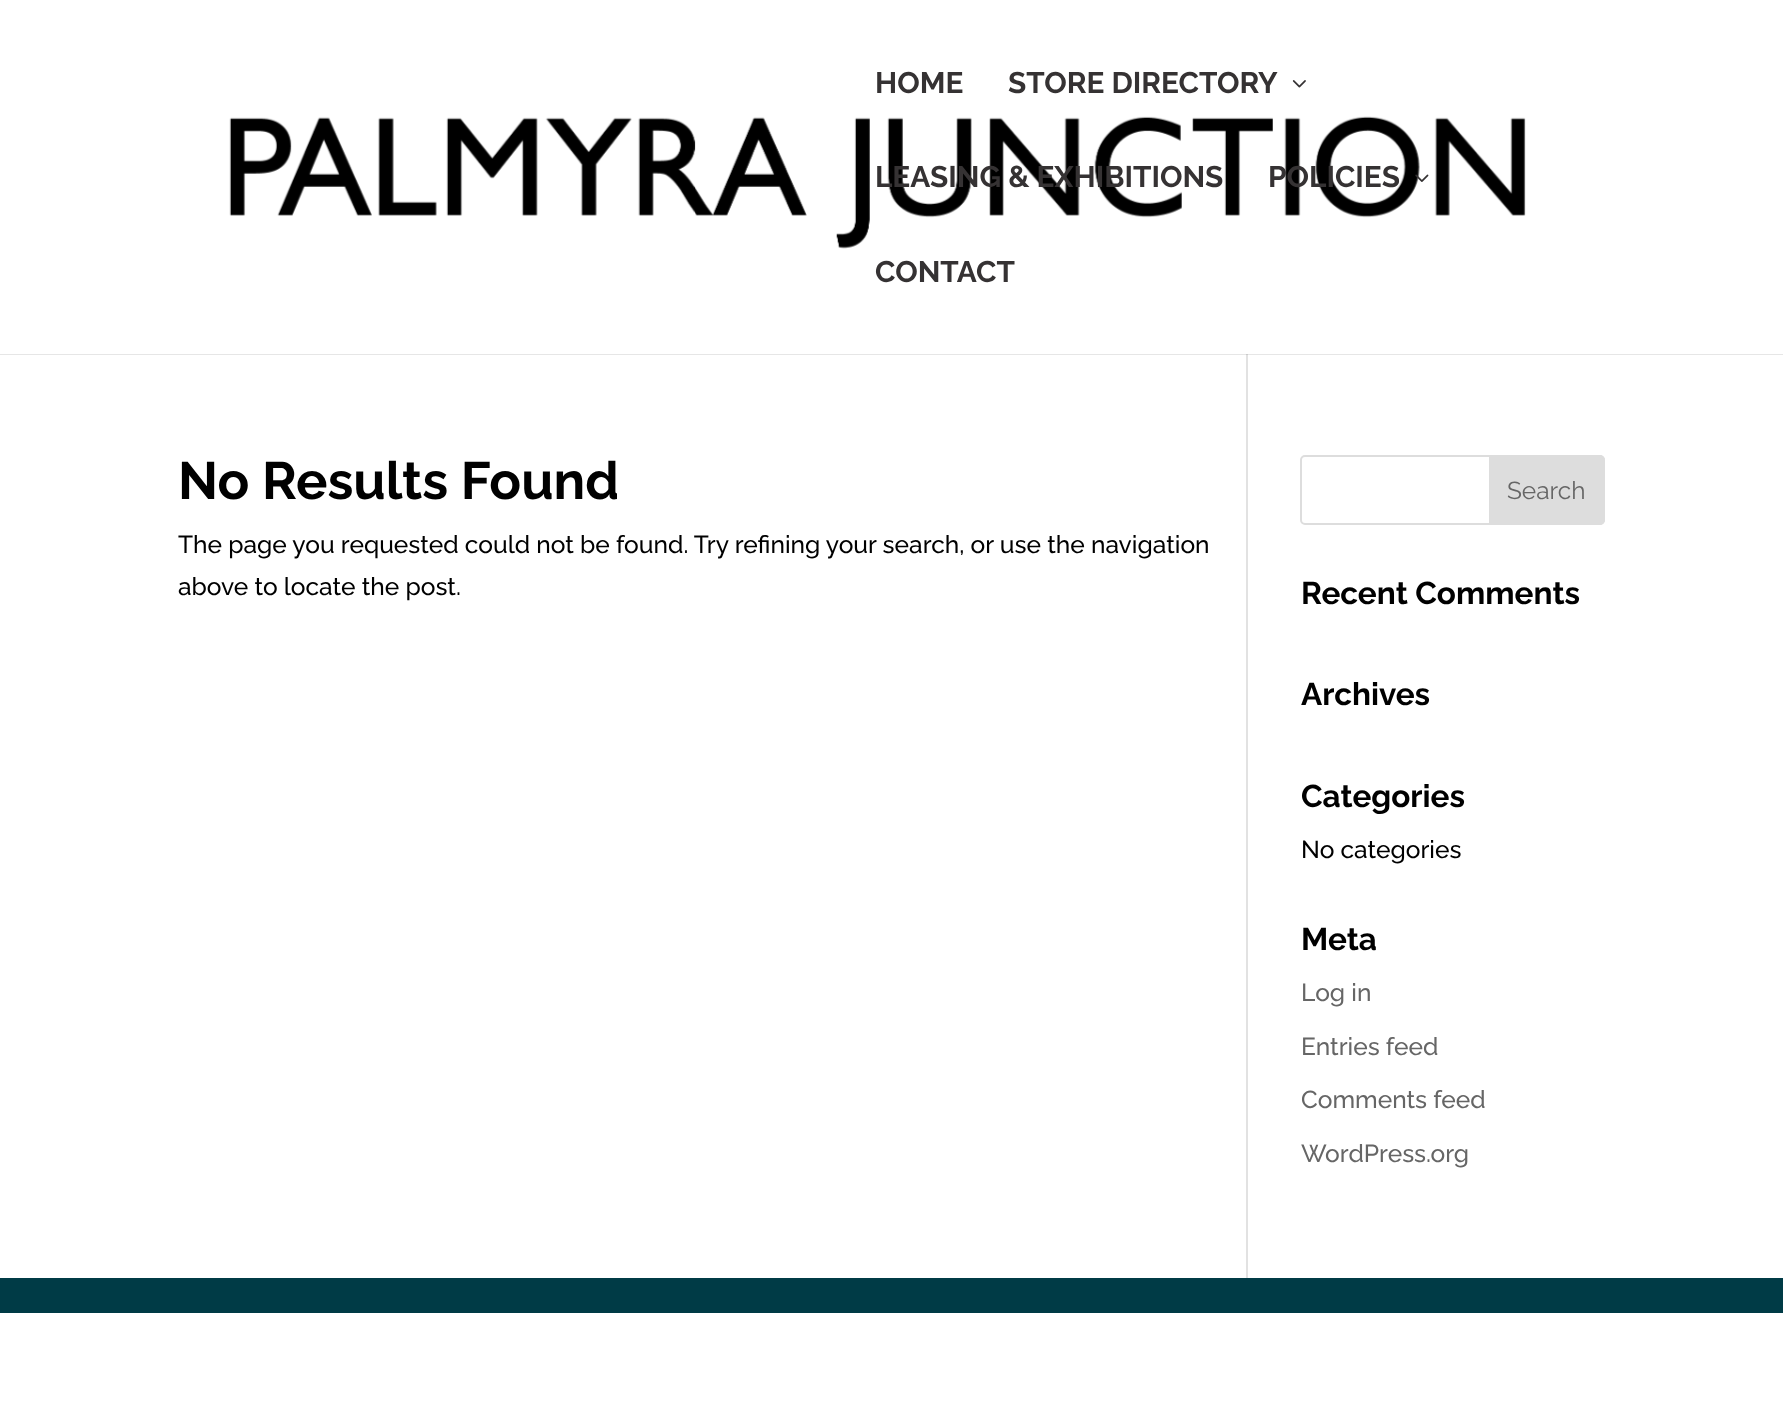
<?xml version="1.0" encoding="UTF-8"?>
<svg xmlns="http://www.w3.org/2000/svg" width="1783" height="1428">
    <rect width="100%" height="100%" fill="#FFFFFF"/>
    <rect x="0" y="354" width="1783" height="1" fill="#E6E6E6"/>
    <text x="875" y="93" font-family="Raleway" font-size="29.75" font-weight="700" fill="#353233">HOME</text>
    <text x="1008" y="93" font-family="Raleway" font-size="29.75" font-weight="700" fill="#353233">STORE DIRECTORY</text>
    <image x="1292" y="80" width="14" height="8" href="img_01.png"/>
    <image x="229" y="116" width="1297" height="133" href="img_03.png"/>
    <text x="875" y="187" font-family="Raleway" font-size="29.75" font-weight="700" fill="#353233">LEASING &amp; EXHIBITIONS</text>
    <text x="1268" y="187" font-family="Raleway" font-size="29.75" font-weight="700" fill="#353233">POLICIES</text>
    <image x="1415" y="174" width="14" height="8" href="img_02.png"/>
    <text x="875" y="282" font-family="Raleway" font-size="29.75" font-weight="700" fill="#353233">CONTACT</text>
    <rect x="1246" y="354" width="2" height="924" fill="#E2E2E2"/>
    <rect x="1246" y="354" width="2" height="1" fill="#CBCBCB"/>
    <text x="178" y="499" font-family="Raleway" font-size="52.5" font-weight="700" fill="#000000">No Results Found</text>
    <text font-family="Raleway" font-size="24.5" font-weight="500" fill="#000000">
        <tspan x="178" y="553">The page you requested could not be found. Try refining your search, or use the navigation</tspan>
        <tspan x="178" y="595">above to locate the post.</tspan>
    </text>
    <rect x="1301" y="456" width="303" height="68" rx="4" fill="none" stroke="#DDDDDD" stroke-width="2"/>
    <path d="M 1490 456 H 1600 C 1602 456 1604 458 1604 460 V 520 C 1604 522 1602 524 1600 524 H 1490 Z" fill="#DDDDDD" stroke="#DDDDDD" stroke-width="2"/>
    <text x="1507" y="499" font-family="Raleway" font-size="24.5" fill="#666666">Search</text>
    <text x="1301" y="604" font-family="Raleway" font-size="31.5" font-weight="700" fill="#000000">Recent Comments</text>
    <text x="1301" y="705" font-family="Raleway" font-size="31.5" font-weight="700" fill="#000000">Archives</text>
    <text x="1301" y="807" font-family="Raleway" font-size="31.5" font-weight="700" fill="#000000">Categories</text>
    <text x="1301" y="858" font-family="Raleway" font-size="24.5" font-weight="500" fill="#000000">No categories</text>
    <text x="1301" y="950" font-family="Raleway" font-size="31.5" font-weight="700" fill="#000000">Meta</text>
    <text x="1301" y="1001" font-family="Raleway" font-size="24.5" font-weight="500" fill="#666666">Log in</text>
    <text x="1301" y="1055" font-family="Raleway" font-size="24.5" font-weight="500" fill="#666666">Entries feed</text>
    <text x="1301" y="1108" font-family="Raleway" font-size="24.5" font-weight="500" fill="#666666">Comments feed</text>
    <text x="1301" y="1162" font-family="Raleway" font-size="24.5" font-weight="500" fill="#666666">WordPress.org</text>
    <rect x="0" y="1278" width="1783" height="35" fill="#003B46"/>
</svg>
